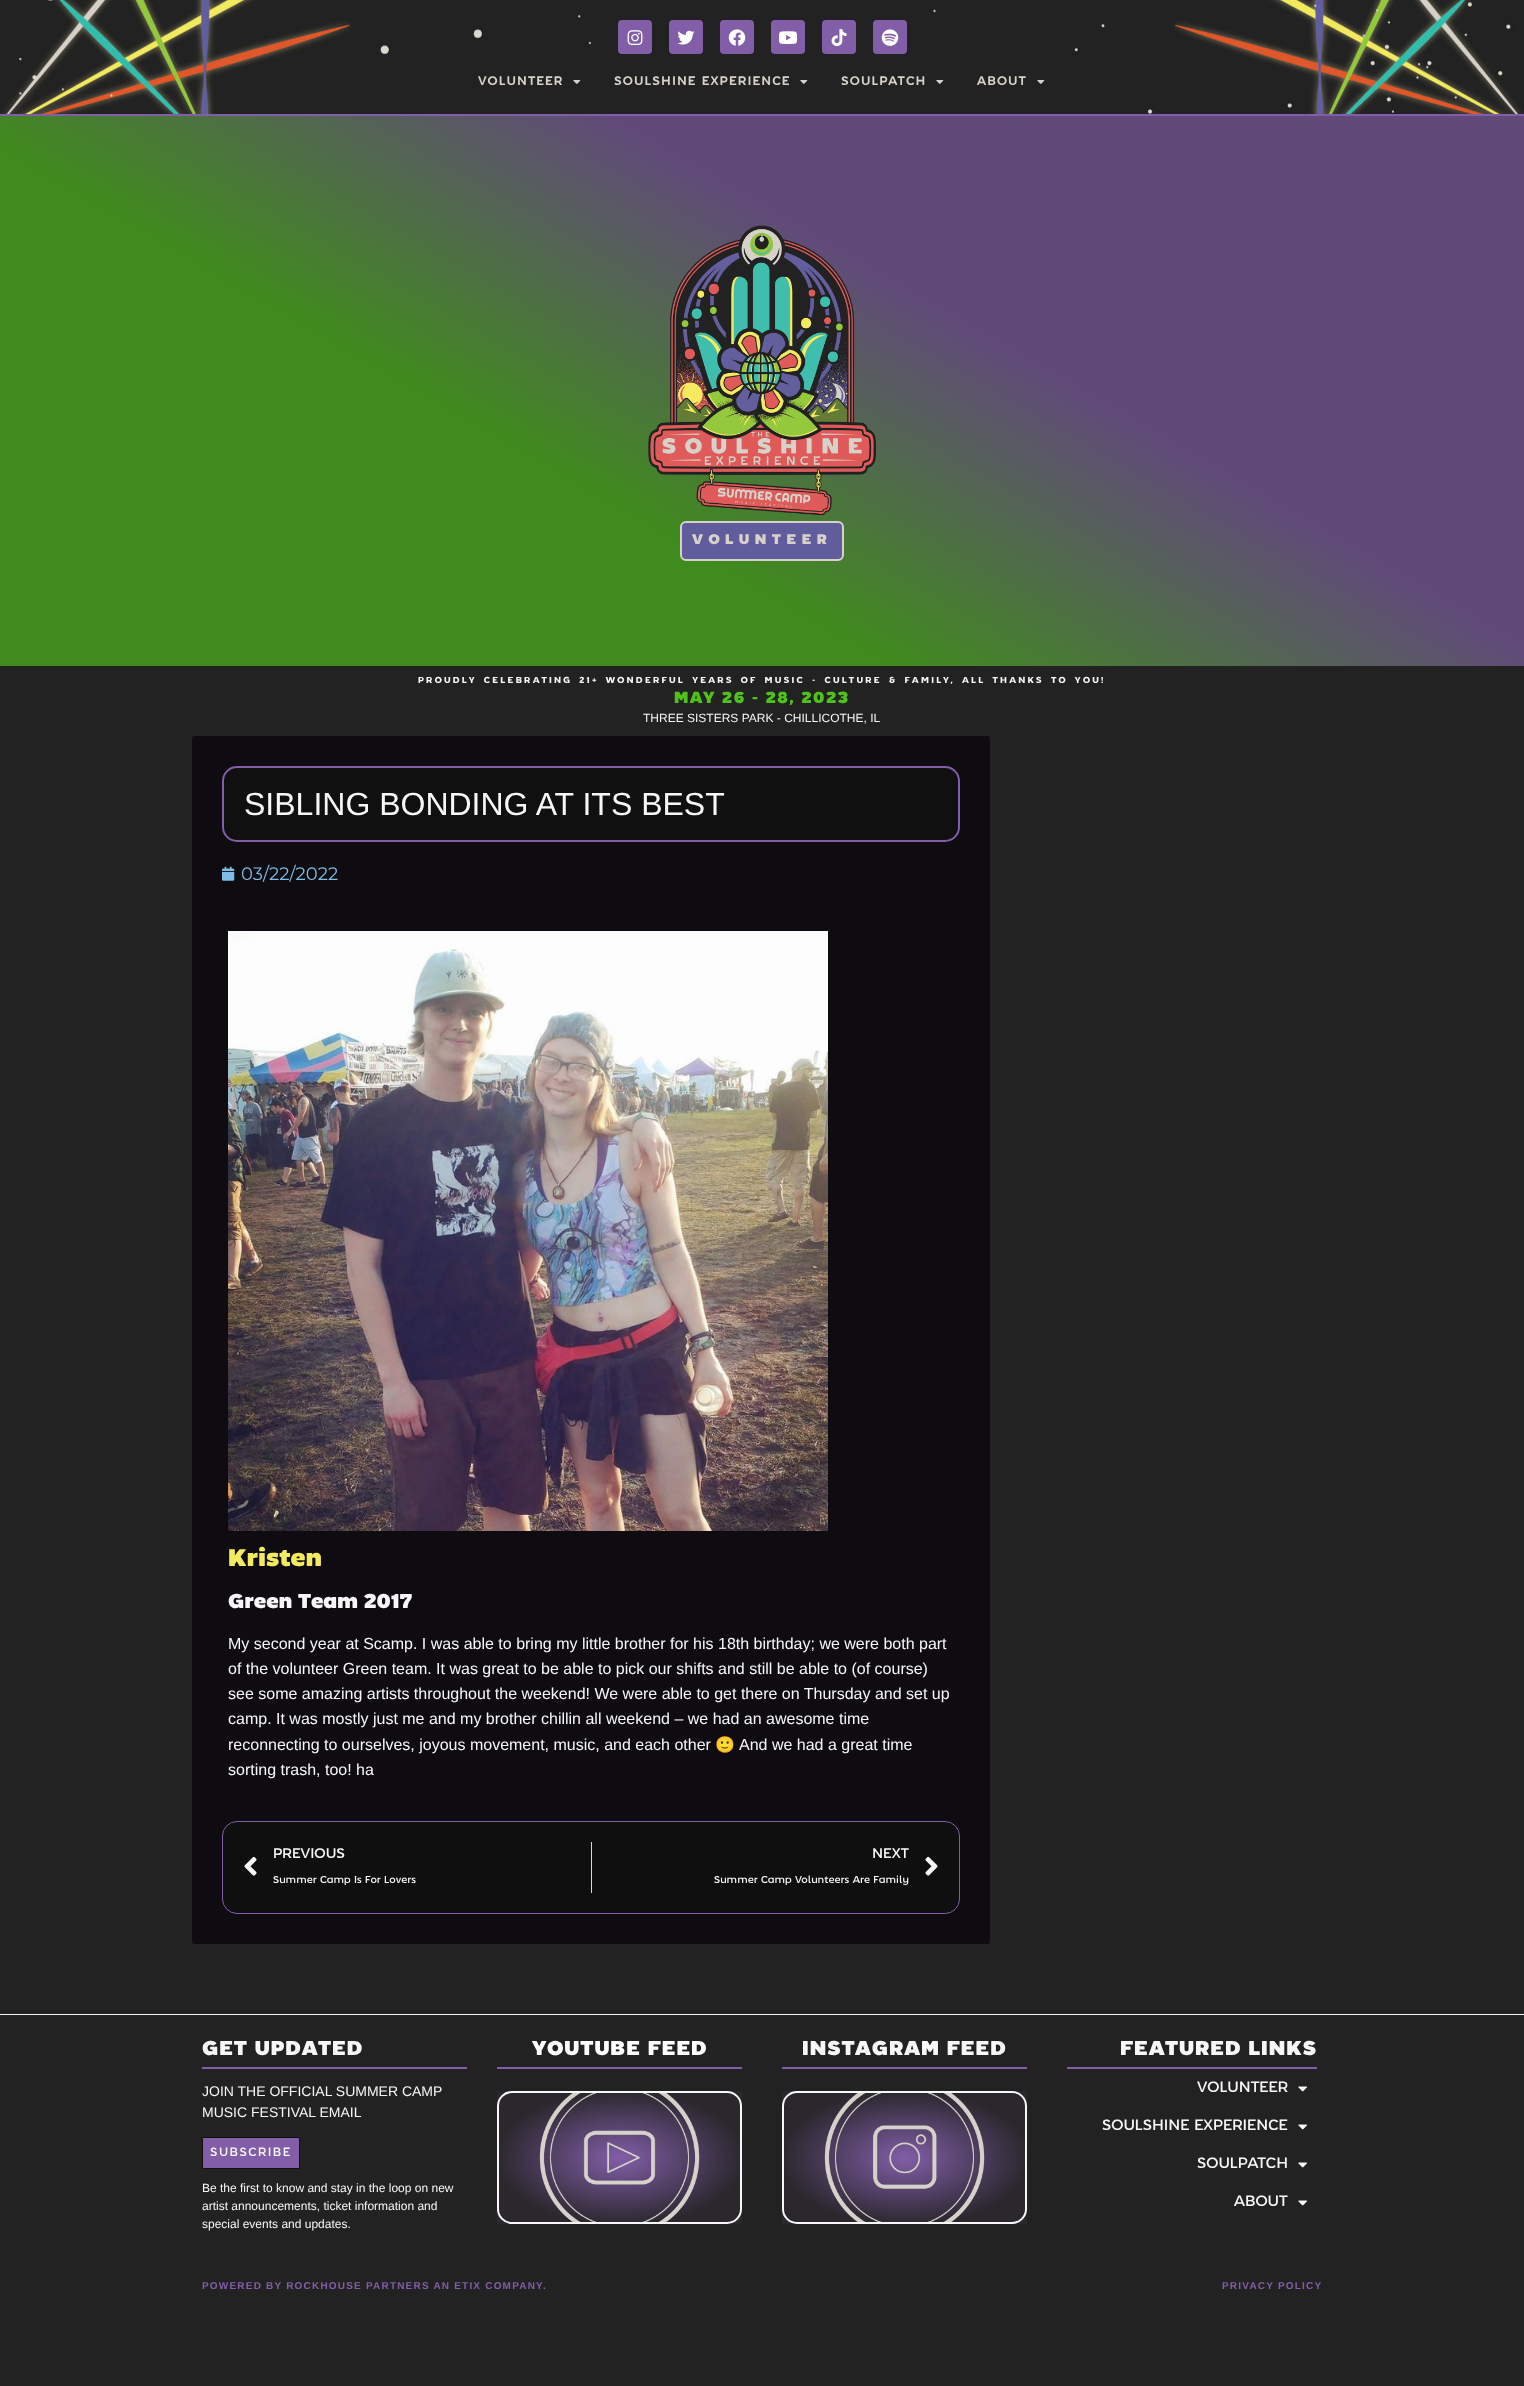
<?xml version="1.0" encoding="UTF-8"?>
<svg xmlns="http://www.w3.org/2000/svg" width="1524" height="2386">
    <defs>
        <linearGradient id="g1" gradientUnits="userSpaceOnUse" x1="452" y1="927" x2="1072" y2="-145"><stop offset="0.36" stop-color="#408B1D"/><stop offset="0.63" stop-color="#614A7A"/></linearGradient>
        <radialGradient id="g2" gradientUnits="userSpaceOnUse" cx="0" cy="0" r="1" gradientTransform="matrix(173 0 0 94 620 2158)"><stop offset="0" stop-color="#815EA7"/><stop offset="0.72" stop-color="#2A272D"/></radialGradient>
        <radialGradient id="g3" gradientUnits="userSpaceOnUse" cx="0" cy="0" r="1" gradientTransform="matrix(173 0 0 94 905 2158)"><stop offset="0" stop-color="#815EA7"/><stop offset="0.72" stop-color="#2A272D"/></radialGradient>
    </defs>
    <rect width="100%" height="100%" fill="#222222"/>
    <image x="0" y="0" width="1524" height="114" href="img_01.png"/>
    <rect x="0" y="114" width="1524" height="2" fill="#815EA7"/>
    <rect x="618" y="20" width="34" height="34" rx="4" fill="#815EA7"/>
    <image x="627" y="30" width="16" height="16" href="img_02.png"/>
    <rect x="669" y="20" width="34" height="34" rx="4" fill="#815EA7"/>
    <image x="677" y="30" width="18" height="15" href="img_03.png"/>
    <rect x="720" y="20" width="34" height="34" rx="4" fill="#815EA7"/>
    <image x="728" y="29" width="18" height="17" href="img_04.png"/>
    <rect x="771" y="20" width="34" height="34" rx="4" fill="#815EA7"/>
    <image x="778" y="31" width="20" height="13" href="img_05.png"/>
    <rect x="822" y="20" width="34" height="34" rx="4" fill="#815EA7"/>
    <image x="831" y="29" width="16" height="18" href="img_06.png"/>
    <rect x="873" y="20" width="34" height="34" rx="4" fill="#815EA7"/>
    <image x="881" y="29" width="18" height="17" href="img_07.png"/>
    <text x="478" y="85" font-family="'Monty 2'" font-size="12" font-weight="700" letter-spacing="1.4" fill="#D6D1CA">VOLUNTEER</text>
    <image x="573" y="80" width="8" height="4" href="img_08.png"/>
    <text x="614" y="85" font-family="'Monty 2'" font-size="12" font-weight="700" letter-spacing="1.4" fill="#D6D1CA">SOULSHINE EXPERIENCE</text>
    <image x="800" y="80" width="8" height="4" href="img_08.png"/>
    <text x="841" y="85" font-family="'Monty 2'" font-size="12" font-weight="700" letter-spacing="1.4" fill="#D6D1CA">SOULPATCH</text>
    <image x="936" y="80" width="8" height="4" href="img_08.png"/>
    <text x="977" y="85" font-family="'Monty 2'" font-size="12" font-weight="700" letter-spacing="1.4" fill="#D6D1CA">ABOUT</text>
    <image x="1037" y="80" width="8" height="4" href="img_08.png"/>
    <rect x="0" y="116" width="1524" height="550" fill="url(#g1)"/>
    <image x="648" y="225" width="229" height="291" href="img_09.png"/>
    <rect x="681" y="522" width="162" height="38" rx="5" fill="#615D9D" stroke="#D6D1CA" stroke-width="2"/>
    <text x="692" y="544" font-family="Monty" font-size="14" font-weight="900" letter-spacing="5.5" fill="#D6D1CA">VOLUNTEER</text>
    <text x="418" y="683" word-spacing="2.6" font-family="Monty" font-size="8.75" font-weight="700" letter-spacing="2.25" fill="#F7F7F7">PROUDLY CELEBRATING 21+ WONDERFUL YEARS OF MUSIC - CULTURE &amp; FAMILY, ALL THANKS TO YOU!</text>
    <text x="674" y="703" font-family="Monty" font-size="16" font-weight="900" letter-spacing="1.5" fill="#50C11B">MAY 26 - 28, 2023</text>
    <text x="643" y="722" font-family="Liberation Sans" font-size="12" fill="#F7F7F7">THREE SISTERS PARK - CHILLICOTHE, IL</text>
    <rect x="192" y="736" width="798" height="1208" rx="3" fill="#0E0C10"/>
    <rect x="223" y="767" width="736" height="74" rx="14" fill="#101010" stroke="#815EA7" stroke-width="2"/>
    <text x="244" y="815" font-family="Liberation Sans" font-size="32" fill="#F7F7F7">SIBLING BONDING AT ITS BEST</text>
    <image x="222" y="866" width="13" height="15" href="img_10.png"/>
    <text x="241" y="880" font-family="Montserrat" font-size="18" fill="#7FBDE7">03/22/2022</text>
    <image x="228" y="931" width="600" height="600" href="img_11.png"/>
    <text x="228" y="1566" font-family="Monty" font-size="24" font-weight="900" fill="#F3EB5F">Kristen</text>
    <text x="228" y="1608" font-family="Monty" font-size="20" font-weight="900" fill="#F7F7F7">Green Team 2017</text>
    <text font-family="Liberation Sans" font-size="16" fill="#F7F7F7">
        <tspan x="228" y="1649">My second year at Scamp. I was able to bring my little brother for his 18th birthday; we were both part</tspan>
        <tspan x="228" y="1674">of the volunteer Green team. It was great to be able to pick our shifts and still be able to (of course)</tspan>
        <tspan x="228" y="1699">see some amazing artists throughout the weekend! We were able to get there on Thursday and set up</tspan>
        <tspan x="228" y="1724">camp. It was mostly just me and my brother chillin all weekend – we had an awesome time</tspan>
        <tspan x="228" y="1750">reconnecting to ourselves, joyous movement, music, and each other</tspan>
    </text>
    <text x="715" y="1750" font-family="Noto Color Emoji" font-size="16" fill="#F7F7F7">🙂</text>
    <text x="739" y="1750" font-family="Liberation Sans" font-size="16" fill="#F7F7F7">And we had a great time</text>
    <text x="228" y="1775" font-family="Liberation Sans" font-size="16" fill="#F7F7F7">sorting trash, too! ha</text>
    <rect x="222.5" y="1821.5" width="737" height="92" rx="14.5" fill="#0F0F10" stroke="#815EA7"/>
    <image x="244" y="1856" width="13" height="20" href="img_12.png"/>
    <text x="273" y="1858" font-family="Monty" font-size="14" fill="#F7F7F7">PREVIOUS</text>
    <text x="273" y="1883" font-family="Monty" font-size="10" fill="#F7F7F7">Summer Camp Is For Lovers</text>
    <rect x="591" y="1842" width="1" height="51" fill="#D5D8DC"/>
    <text x="872" y="1858" font-family="Monty" font-size="14" fill="#F7F7F7">NEXT</text>
    <text x="714" y="1883" font-family="Monty" font-size="10" fill="#F7F7F7">Summer Camp Volunteers Are Family</text>
    <image x="925" y="1856" width="13" height="20" href="img_13.png"/>
    <rect x="0" y="2014" width="1524" height="1" fill="#F7F7F7"/>
    <text x="202" y="2055" font-family="Monty" font-size="20" font-weight="900" letter-spacing="1" fill="#F7F7F7">GET UPDATED</text>
    <rect x="202" y="2067" width="265" height="2" fill="#815EA7"/>
    <text font-family="Liberation Sans" font-size="14" fill="#F7F7F7">
        <tspan x="202" y="2096">JOIN THE OFFICIAL SUMMER CAMP</tspan>
        <tspan x="202" y="2117">MUSIC FESTIVAL EMAIL</tspan>
    </text>
    <rect x="202.5" y="2137.5" width="97" height="31" rx="0.5" fill="#815EA7" stroke="#101010"/>
    <text x="210" y="2156" font-family="Monty" font-size="12" letter-spacing="1.5" fill="#F7F7F7">SUBSCRIBE</text>
    <text font-family="Liberation Sans" font-size="12" fill="#F7F7F7">
        <tspan x="202" y="2192">Be the first to know and stay in the loop on new</tspan>
        <tspan x="202" y="2210">artist announcements, ticket information and</tspan>
        <tspan x="202" y="2228">special events and updates.</tspan>
    </text>
    <text x="532" y="2055" font-family="Monty" font-size="20" font-weight="900" letter-spacing="1" fill="#FFFFFF">YOUTUBE FEED</text>
    <rect x="497" y="2067" width="245" height="2" fill="#815EA7"/>
    <rect x="497" y="2091" width="245" height="133" fill="url(#g2)"/>
    <rect x="498" y="2092" width="243" height="131" rx="14" fill="none" stroke="#F7F7F7" stroke-width="2"/>
    <image x="539" y="2093" width="161" height="129" href="img_14.png"/>
    <text x="802" y="2055" font-family="Monty" font-size="20" font-weight="900" letter-spacing="1" fill="#F7F7F7">INSTAGRAM FEED</text>
    <rect x="782" y="2067" width="245" height="2" fill="#815EA7"/>
    <rect x="782" y="2091" width="245" height="133" fill="url(#g3)"/>
    <rect x="783" y="2092" width="243" height="131" rx="14" fill="none" stroke="#F7F7F7" stroke-width="2"/>
    <image x="824" y="2093" width="161" height="129" href="img_15.png"/>
    <text x="1120" y="2055" font-family="Monty" font-size="20" font-weight="900" letter-spacing="1" fill="#F7F7F7">FEATURED LINKS</text>
    <rect x="1067" y="2067" width="250" height="2" fill="#815EA7"/>
    <text x="1197" y="2092" font-family="Monty" font-size="15" fill="#F7F7F7">VOLUNTEER</text>
    <image x="1298" y="2086" width="9" height="6" href="img_16.png"/>
    <text x="1102" y="2130" font-family="Monty" font-size="15" fill="#F7F7F7">SOULSHINE EXPERIENCE</text>
    <image x="1298" y="2124" width="9" height="6" href="img_16.png"/>
    <text x="1197" y="2168" font-family="Monty" font-size="15" fill="#F7F7F7">SOULPATCH</text>
    <image x="1298" y="2162" width="9" height="6" href="img_16.png"/>
    <text x="1234" y="2206" font-family="Monty" font-size="15" fill="#F7F7F7">ABOUT</text>
    <image x="1298" y="2200" width="9" height="6" href="img_16.png"/>
    <text x="202" y="2289" font-family="Liberation Sans" font-size="10" font-weight="700" letter-spacing="1.2" fill="#815EA7">POWERED BY ROCKHOUSE PARTNERS AN ETIX COMPANY.</text>
    <text x="1222" y="2289" font-family="Liberation Sans" font-size="10" font-weight="700" letter-spacing="1.2" fill="#815EA7">PRIVACY POLICY</text>
</svg>
